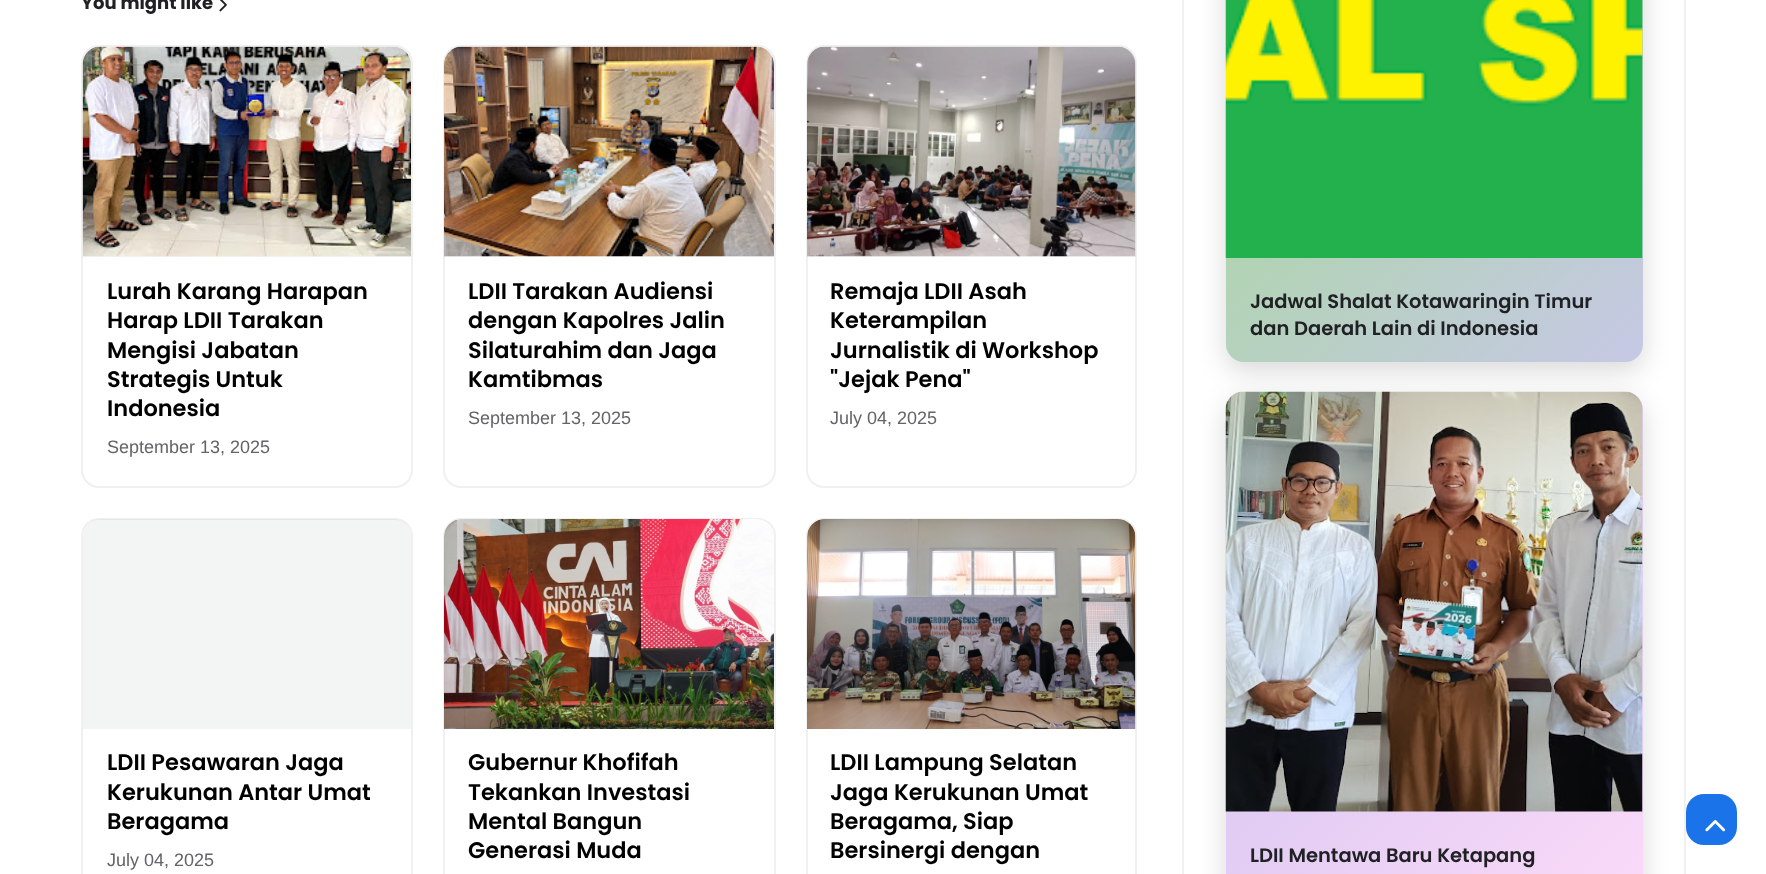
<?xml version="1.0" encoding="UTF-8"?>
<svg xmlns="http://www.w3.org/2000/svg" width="1766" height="874">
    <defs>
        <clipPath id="clip1"><rect x="83" y="47" width="328" height="439" rx="17"/></clipPath>
        <filter id="blur1" x="-50%" y="-200%" width="200%" height="500%"><feGaussianBlur stdDeviation="13.5"/></filter>
        <linearGradient id="g1" gradientUnits="userSpaceOnUse" x1="1199" y1="-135" x2="1669" y2="335"><stop offset="0" stop-color="#A0DD8A"/><stop offset="1" stop-color="#C6C8E5"/></linearGradient>
        <linearGradient id="g2" gradientUnits="userSpaceOnUse" x1="1192" y1="425" x2="1676" y2="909"><stop offset="0" stop-color="#CABFEE"/><stop offset="1" stop-color="#FDDBF9"/></linearGradient>
    </defs>
    <rect width="100%" height="100%" fill="#FFFFFF"/>
    <text x="81" y="9" font-family="Poppins" font-size="18" font-weight="700" fill="#202124">You might like</text>
    <image x="219" y="0" width="8" height="12" href="img_01.png"/>
    <rect x="82" y="46" width="330" height="441" rx="17" fill="none" stroke="#F0F0F0" stroke-width="2"/>
    <g clip-path="url(#clip1)">
        <path d="M 101 47 H 393 C 403 47 411 55 411 65 V 257 H 83 V 65 C 83 55 91 47 101 47 Z" fill="#F3F5F5"/>
    </g>
    <image x="82" y="46" width="329" height="211" href="img_02.png"/>
    <text font-family="Poppins" font-size="22.5" font-weight="600" fill="#000000">
        <tspan x="107" y="299">Lurah Karang Harapan</tspan>
        <tspan x="107" y="328">Harap LDII Tarakan</tspan>
        <tspan x="107" y="358">Mengisi Jabatan</tspan>
        <tspan x="107" y="387">Strategis Untuk</tspan>
        <tspan x="107" y="416">Indonesia</tspan>
    </text>
    <text x="107" y="453" font-family="Liberation Sans" font-size="18" fill="#636466">September 13, 2025</text>
    <rect x="444" y="46" width="331" height="441" rx="17" fill="none" stroke="#F0F0F0" stroke-width="2"/>
    <path d="M 462 47 H 756 C 766 47 774 55 774 65 V 257 H 444 V 65 C 444 55 452 47 462 47 Z" fill="#9BAAAF" fill-opacity="0.12"/>
    <image x="444" y="46" width="330" height="211" href="img_03.png"/>
    <text font-family="Poppins" font-size="22.5" font-weight="600" fill="#000000">
        <tspan x="468" y="299">LDII Tarakan Audiensi</tspan>
        <tspan x="468" y="328">dengan Kapolres Jalin</tspan>
        <tspan x="468" y="358">Silaturahim dan Jaga</tspan>
        <tspan x="468" y="387">Kamtibmas</tspan>
    </text>
    <text x="468" y="424" font-family="Liberation Sans" font-size="18" fill="#636466">September 13, 2025</text>
    <rect x="807" y="46" width="329" height="441" rx="17" fill="none" stroke="#F0F0F0" stroke-width="2"/>
    <path d="M 825 47 H 1118 C 1128 47 1136 55 1136 65 V 257 H 807 V 65 C 807 55 815 47 825 47 Z" fill="#9BAAAF" fill-opacity="0.12"/>
    <image x="807" y="46" width="329" height="211" href="img_04.png"/>
    <text font-family="Poppins" font-size="22.5" font-weight="600" fill="#000000">
        <tspan x="830" y="299">Remaja LDII Asah</tspan>
        <tspan x="830" y="328">Keterampilan</tspan>
        <tspan x="830" y="358">Jurnalistik di Workshop</tspan>
        <tspan x="830" y="387">"Jejak Pena"</tspan>
    </text>
    <text x="830" y="424" font-family="Liberation Sans" font-size="18" fill="#636466">July 04, 2025</text>
    <rect x="82" y="519" width="330" height="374" rx="17" fill="none" stroke="#F0F0F0" stroke-width="2"/>
    <path d="M 101 519 H 393 C 403 519 411 527 411 537 V 729 H 83 V 537 C 83 527 91 519 101 519 Z" fill="#9BAAAF" fill-opacity="0.12"/>
    <text font-family="Poppins" font-size="22.5" font-weight="600" fill="#000000">
        <tspan x="107" y="770">LDII Pesawaran Jaga</tspan>
        <tspan x="107" y="800">Kerukunan Antar Umat</tspan>
        <tspan x="107" y="829">Beragama</tspan>
    </text>
    <text x="107" y="866" font-family="Liberation Sans" font-size="18" fill="#636466">July 04, 2025</text>
    <rect x="444" y="519" width="331" height="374" rx="17" fill="none" stroke="#F0F0F0" stroke-width="2"/>
    <image x="444" y="519" width="330" height="210" href="img_05.png"/>
    <text font-family="Poppins" font-size="22.5" font-weight="600" fill="#000000">
        <tspan x="468" y="770">Gubernur Khofifah</tspan>
        <tspan x="468" y="800">Tekankan Investasi</tspan>
        <tspan x="468" y="829">Mental Bangun</tspan>
        <tspan x="468" y="858">Generasi Muda</tspan>
    </text>
    <rect x="807" y="519" width="329" height="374" rx="17" fill="none" stroke="#F0F0F0" stroke-width="2"/>
    <path d="M 825 519 H 1118 C 1128 519 1136 527 1136 537 V 729 H 807 V 537 C 807 527 815 519 825 519 Z" fill="#9BAAAF" fill-opacity="0.12"/>
    <image x="807" y="519" width="329" height="210" href="img_06.png"/>
    <text font-family="Poppins" font-size="22.5" font-weight="600" fill="#000000">
        <tspan x="830" y="770">LDII Lampung Selatan</tspan>
        <tspan x="830" y="800">Jaga Kerukunan Umat</tspan>
        <tspan x="830" y="829">Beragama, Siap</tspan>
        <tspan x="830" y="858">Bersinergi dengan</tspan>
    </text>
    <rect x="1183" y="-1" width="502" height="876" fill="none" stroke="#F0F0F0" stroke-width="2"/>
    <rect x="1226" y="-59" width="417" height="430" rx="18" fill="#000000" fill-opacity="0.15" filter="url(#blur1)"/>
    <rect x="1226" y="-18" width="417" height="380" rx="18" fill="url(#g1)"/>
    <image x="1225" y="0" width="418" height="258" href="img_07.png"/>
    <text font-family="Poppins" font-size="19.5" font-weight="600" fill="#202124">
        <tspan x="1250" y="308">Jadwal Shalat Kotawaringin Timur</tspan>
        <tspan x="1250" y="335">dan Daerah Lain di Indonesia</tspan>
    </text>
    <rect x="1226" y="401" width="417" height="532" rx="18" fill="#000000" fill-opacity="0.15" filter="url(#blur1)"/>
    <rect x="1226" y="392" width="417" height="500" rx="18" fill="url(#g2)"/>
    <image x="1225" y="391" width="418" height="421" href="img_08.png"/>
    <text x="1250" y="862" font-family="Poppins" font-size="19.5" font-weight="600" fill="#202124">LDII Mentawa Baru Ketapang</text>
    <rect x="1686" y="794" width="51" height="51" rx="18" fill="#1A73E8"/>
    <image x="1705" y="820" width="21" height="12" href="img_09.png"/>
</svg>
